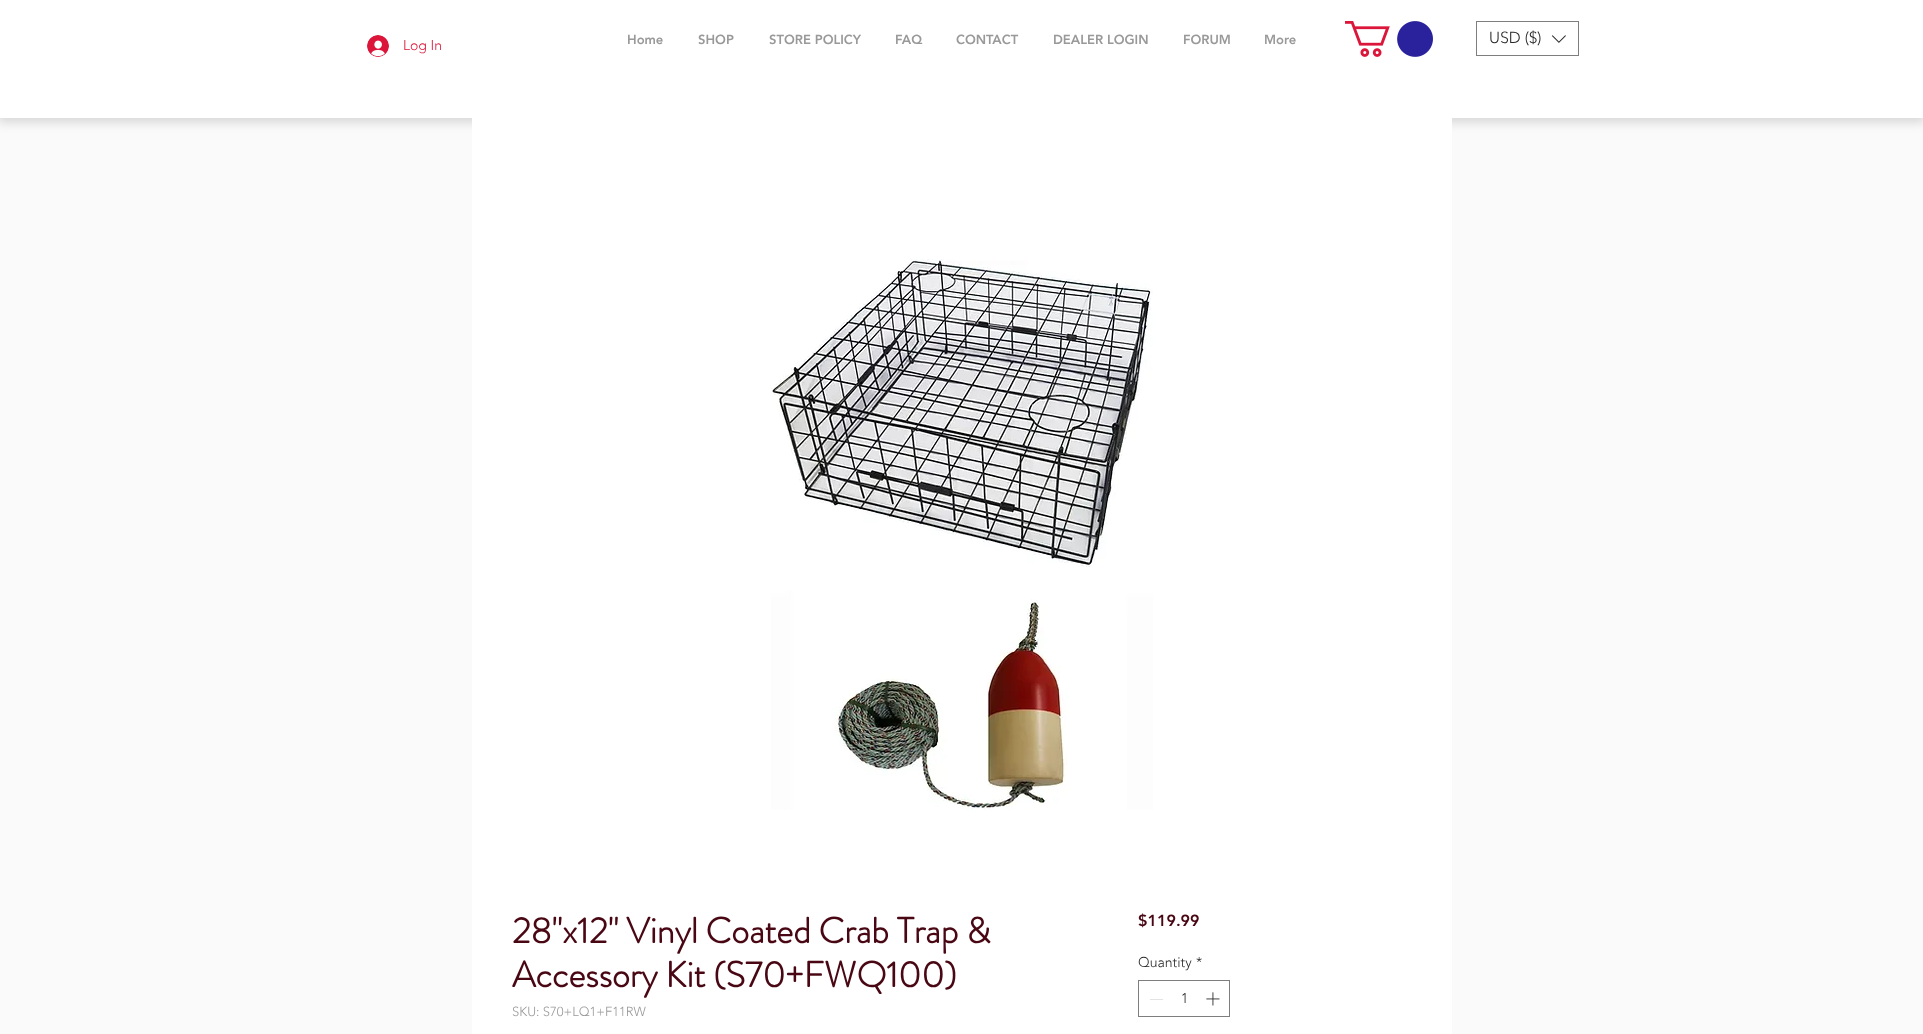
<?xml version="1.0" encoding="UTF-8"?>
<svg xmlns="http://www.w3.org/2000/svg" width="1923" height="1034">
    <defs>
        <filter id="blur1" x="-50%" y="-200%" width="200%" height="500%"><feGaussianBlur stdDeviation="5.5"/></filter>
    </defs>
    <rect width="100%" height="100%" fill="#FAFAFA"/>
    <rect x="-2" y="0" width="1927" height="122" fill="#000000" fill-opacity="0.15" filter="url(#blur1)"/>
    <rect x="0" y="0" width="1923" height="118" fill="#FFFFFF"/>
    <image x="367" y="35" width="22" height="22" href="img_01.png"/>
    <text x="403" y="50" font-family="'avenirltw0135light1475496'" font-size="14" font-weight="300" fill="#DB163A">Log In</text>
    <image x="1345" y="21" width="88" height="36" href="img_02.png"/>
    <rect x="1476.5" y="21.5" width="102" height="34" fill="none" stroke="#7E7E7E"/>
    <text x="1489" y="43" font-family="'avenirltw0135light1475496'" font-size="16" font-weight="300" fill="#282828">USD ($)</text>
    <image x="1551" y="35" width="15" height="8" href="img_03.png"/>
    <text x="627" y="44" font-family="'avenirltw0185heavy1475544'" font-size="13" font-weight="900" fill="#999999">Home</text>
    <text x="698" y="44" font-family="'avenirltw0185heavy1475544'" font-size="13" font-weight="900" fill="#999999">SHOP</text>
    <text x="769" y="44" font-family="'avenirltw0185heavy1475544'" font-size="13" font-weight="900" fill="#999999">STORE POLICY</text>
    <text x="895" y="44" font-family="'avenirltw0185heavy1475544'" font-size="13" font-weight="900" fill="#999999">FAQ</text>
    <text x="956" y="44" font-family="'avenirltw0185heavy1475544'" font-size="13" font-weight="900" fill="#999999">CONTACT</text>
    <text x="1053" y="44" font-family="'avenirltw0185heavy1475544'" font-size="13" font-weight="900" fill="#999999">DEALER LOGIN</text>
    <text x="1183" y="44" font-family="'avenirltw0185heavy1475544'" font-size="13" font-weight="900" fill="#999999">FORUM</text>
    <text x="1264" y="44" font-family="'avenirltw0185heavy1475544'" font-size="13" font-weight="900" fill="#999999">More</text>
    <rect x="472" y="118" width="980" height="916" fill="#FFFFFF"/>
    <image x="771" y="259" width="382" height="551" href="img_04.png"/>
    <text font-family="'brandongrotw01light'" font-size="36" font-weight="700" fill="#490713">
        <tspan x="512" y="943">28"x12" Vinyl Coated Crab Trap &amp;</tspan>
        <tspan x="512" y="987">Accessory Kit (S70+FWQ100)</tspan>
    </text>
    <text x="512" y="1016" font-family="'avenirltw0135light1475496'" font-size="13" font-weight="300" fill="#999999">SKU: S70+LQ1+F11RW</text>
    <text x="1138" y="926" font-family="'avenirltw0185heavy1475544'" font-size="16" font-weight="900" fill="#490713">$119.99</text>
    <text x="1138" y="967" font-family="'avenirltw0135light1475496'" font-size="14" font-weight="300" fill="#282828">Quantity</text>
    <text x="1196" y="967" font-family="'avenirltw0135light1475496'" font-size="14" font-weight="300" fill="#282828">*</text>
    <rect x="1138.5" y="980.5" width="91" height="36" fill="none" stroke="#7E7E7E"/>
    <rect x="1150" y="999" width="13" height="1" fill="#E3E3E3"/>
    <text x="1181" y="1003" font-family="'avenirltw0135light1475496'" font-size="14" font-weight="300" fill="#282828">1</text>
    <image x="1206" y="992" width="14" height="14" href="img_05.png"/>
</svg>
